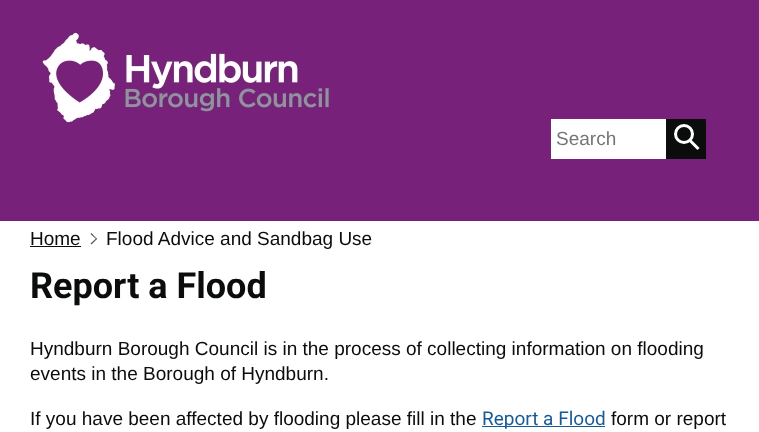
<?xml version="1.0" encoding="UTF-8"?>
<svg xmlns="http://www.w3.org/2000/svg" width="759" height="432">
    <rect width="100%" height="100%" fill="#FFFFFF"/>
    <rect x="0" y="0" width="759" height="221" fill="#77217A"/>
    <image x="41" y="31" width="290" height="92" href="img_01.png"/>
    <rect x="551" y="119" width="115" height="40" fill="#FFFFFF"/>
    <text x="556" y="145" font-family="Liberation Sans" font-size="19" fill="#757575">Search</text>
    <rect x="666" y="119" width="40" height="40" fill="#0B0C0C"/>
    <circle cx="684" cy="134" r="8.5" fill="none" stroke="#FFFFFF" stroke-width="3"/>
    <path d="M 690 140.5 L 698.5 149" fill="none" stroke="#FFFFFF" stroke-width="3"/>
    <text x="30" y="245" font-family="Liberation Sans" font-size="19" fill="#0B0C0C">Home</text>
    <rect x="30" y="246" width="51" height="1" fill="#0B0C0C"/>
    <path d="M 91.5 233 L 97 239 L 96.5 239.5 L 90.5 234 Z" fill="#505A5F"/>
    <path d="M 96.5 238 L 97 239 L 91.5 244.5 L 90.5 243.5 Z" fill="#505A5F"/>
    <text x="106" y="245" font-family="Liberation Sans" font-size="19" fill="#0B0C0C">Flood Advice and Sandbag Use</text>
    <text x="30" y="298" font-family="Roboto" font-size="36" font-weight="700" fill="#0B0C0C">Report a Flood</text>
    <text font-family="Liberation Sans" font-size="19" fill="#0B0C0C">
        <tspan x="30" y="355">Hyndburn Borough Council is in the process of collecting information on flooding</tspan>
        <tspan x="30" y="380">events in the Borough of Hyndburn.</tspan>
    </text>
    <text x="30" y="425" font-family="Liberation Sans" font-size="19" fill="#0B0C0C">If you have been affected by flooding please fill in the</text>
    <rect x="482" y="426" width="123" height="1" fill="#175B96"/>
    <text x="482" y="425" font-family="Roboto" font-size="19" fill="#175B96">Report a Flood</text>
    <text x="611" y="425" font-family="Liberation Sans" font-size="19" fill="#0B0C0C">form or report</text>
</svg>
